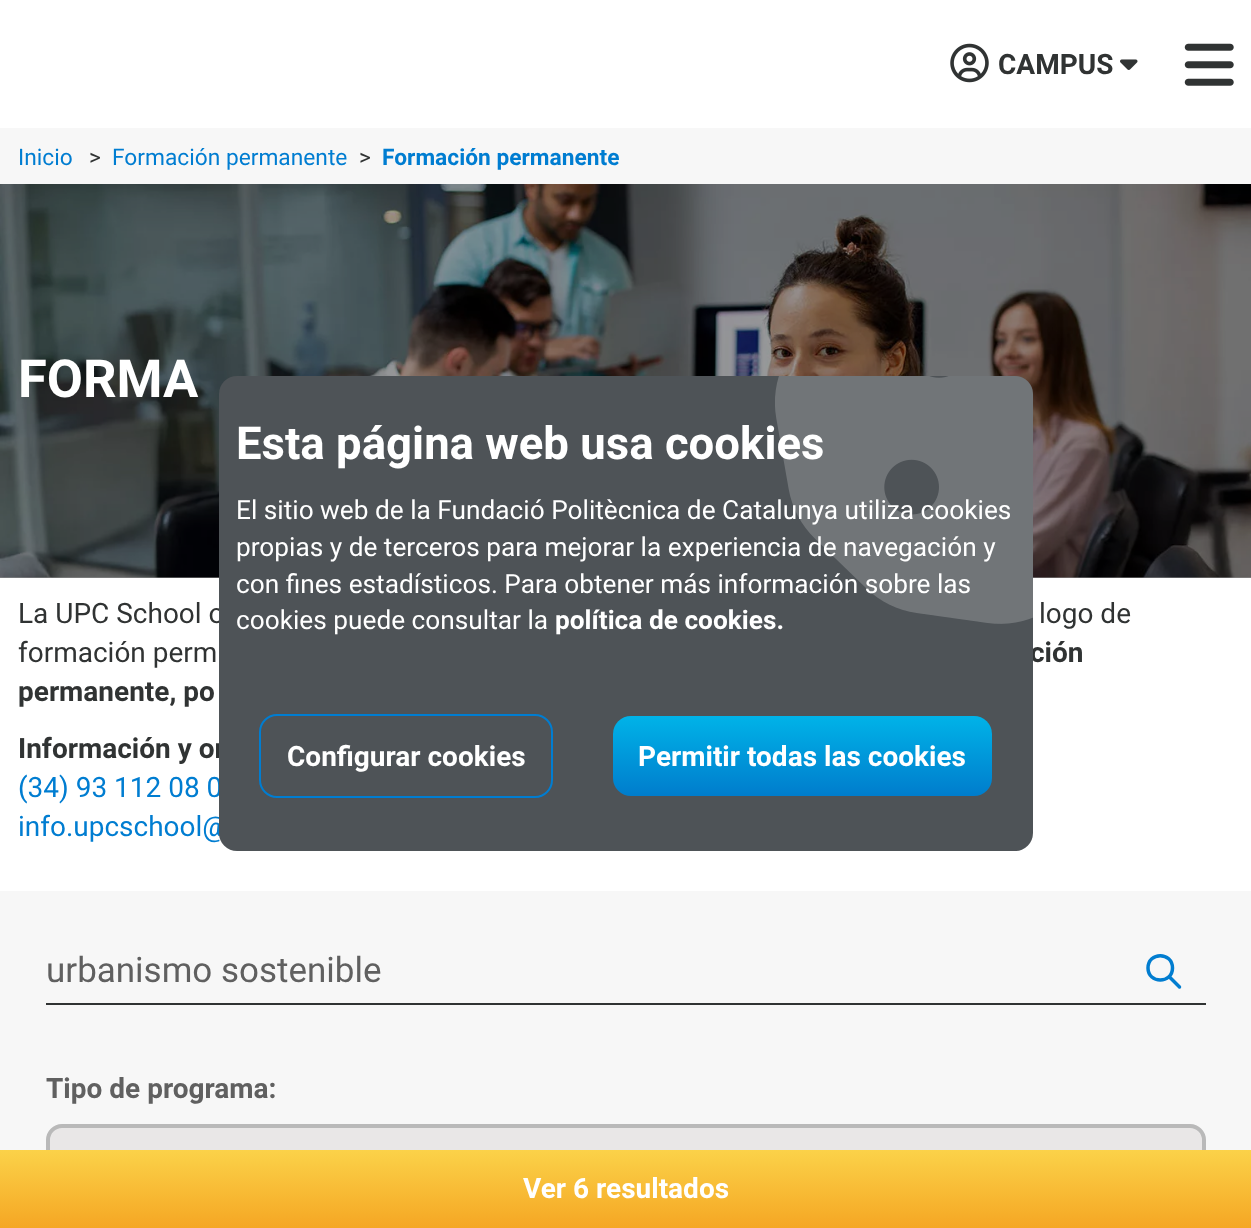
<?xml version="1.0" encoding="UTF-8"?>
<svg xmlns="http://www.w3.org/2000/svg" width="1251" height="1228">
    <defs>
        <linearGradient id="g1" gradientUnits="userSpaceOnUse" x1="802" y1="716" x2="802" y2="797"><stop offset="0" stop-color="#00B3E8"/><stop offset="1" stop-color="#007CCC"/></linearGradient>
        <linearGradient id="g2" gradientUnits="userSpaceOnUse" x1="626" y1="1150" x2="626" y2="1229"><stop offset="0" stop-color="#FBD249"/><stop offset="1" stop-color="#F5A623"/></linearGradient>
    </defs>
    <rect width="100%" height="100%" fill="#FFFFFF"/>
    <rect x="0" y="128" width="1251" height="56" fill="#F7F7F7"/>
    <image x="950" y="43" width="39" height="40" href="img_01.png"/>
    <text x="998" y="74" font-family="Roboto" font-size="28" font-weight="700" fill="#303333">CAMPUS</text>
    <image x="1120" y="59" width="18" height="11" href="img_02.png"/>
    <image x="1184" y="43" width="50" height="43" href="img_03.png"/>
    <text x="18" y="165" font-family="Roboto" font-size="22.75" fill="#007DD1">Inicio</text>
    <text x="89" y="165" font-family="Roboto" font-size="22.75" fill="#303333">&gt;</text>
    <text x="112" y="165" font-family="Roboto" font-size="22.75" fill="#007DD1">Formación permanente</text>
    <text x="359" y="165" font-family="Roboto" font-size="22.75" fill="#303333">&gt;</text>
    <text x="382" y="165" font-family="Roboto" font-size="22.75" font-weight="700" fill="#007DD1">Formación permanente</text>
    <rect x="0" y="577" width="1251" height="1" fill="#949494"/>
    <image x="0" y="184" width="1251" height="394" href="img_04.png"/>
    <text x="18" y="397" font-family="Roboto" font-size="52.5" font-weight="700" fill="#FFFFFF">FORMA</text>
    <text x="18" y="623" font-family="Roboto" font-size="28" fill="#303333">La UPC School o</text>
    <text x="1039" y="623" font-family="Roboto" font-size="28" fill="#303333">logo de</text>
    <text x="18" y="662" font-family="Roboto" font-size="28" fill="#303333">formación perm</text>
    <text x="1030" y="662" font-family="Roboto" font-size="28" font-weight="700" fill="#303333">ción</text>
    <text x="18" y="701" font-family="Roboto" font-size="28" font-weight="700" fill="#303333">permanente, po</text>
    <text x="18" y="758" font-family="Roboto" font-size="28" font-weight="700" fill="#303333">Información y or</text>
    <text font-family="Roboto" font-size="28" fill="#007DD1">
        <tspan x="18" y="797">(34) 93 112 08 0</tspan>
        <tspan x="18" y="836">info.upcschool@</tspan>
    </text>
    <rect x="0" y="891" width="1251" height="259" fill="#F7F7F7"/>
    <rect x="46" y="1003" width="1160" height="2" fill="#303333"/>
    <text x="46" y="982" font-family="Roboto" font-size="35" fill="#606060">urbanismo sostenible</text>
    <path d="M 1179.5 987 L 1169 976.5 M 1172.5 968 C 1172.5 984 1148 984 1148 968 C 1148 951.5 1172.5 951.5 1172.5 968 Z" fill="none" stroke="#017DD0" stroke-width="3.5" stroke-linecap="round" stroke-linejoin="round"/>
    <text x="46" y="1098" font-family="Roboto" font-size="28" font-weight="700" fill="#606060">Tipo de programa:</text>
    <rect x="48" y="1126" width="1156" height="87" rx="14" fill="#E9E7E7" stroke="#B9B9B9" stroke-width="4"/>
    <rect x="219" y="376" width="814" height="475" rx="18" fill="#4E5357"/>
    <image x="775" y="376" width="258" height="248" href="img_05.png"/>
    <text x="236" y="459" font-family="Roboto" font-size="45.5" font-weight="700" fill="#FFFFFF">Esta página web usa cookies</text>
    <text font-family="Roboto" font-size="26.25" fill="#FFFFFF">
        <tspan x="236" y="519">El sitio web de la Fundació Politècnica de Catalunya utiliza cookies</tspan>
        <tspan x="236" y="556">propias y de terceros para mejorar la experiencia de navegación y</tspan>
        <tspan x="236" y="593">con fines estadísticos. Para obtener más información sobre las</tspan>
        <tspan x="236" y="629">cookies puede consultar la</tspan>
    </text>
    <text x="555" y="629" font-family="Roboto" font-size="26.25" font-weight="700" fill="#FFFFFF">política de cookies.</text>
    <rect x="260" y="715" width="292" height="82" rx="17" fill="none" stroke="#007DD1" stroke-width="2"/>
    <text x="287" y="766" font-family="Roboto" font-size="28" font-weight="700" fill="#FFFFFF">Configurar cookies</text>
    <rect x="613" y="716" width="379" height="80" rx="18" fill="url(#g1)"/>
    <text x="638" y="766" font-family="Roboto" font-size="28" font-weight="700" fill="#FFFFFF">Permitir todas las cookies</text>
    <rect x="0" y="1150" width="1251" height="78" fill="url(#g2)"/>
    <text x="523" y="1198" font-family="Roboto" font-size="28" font-weight="700" fill="#FFFFFF">Ver 6 resultados</text>
</svg>
